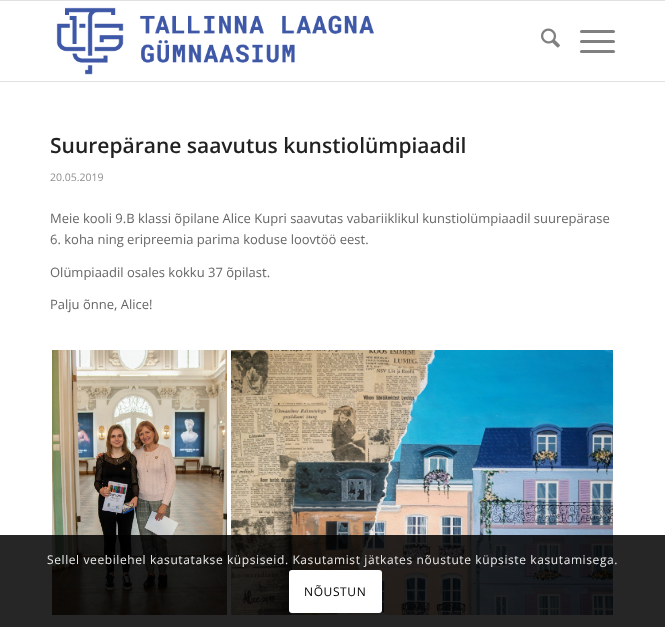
<?xml version="1.0" encoding="UTF-8"?>
<svg xmlns="http://www.w3.org/2000/svg" width="665" height="627">
    <rect width="100%" height="100%" fill="#FFFFFF"/>
    <rect x="0" y="0" width="665" height="1" fill="#E1E1E1"/>
    <rect x="0" y="81" width="665" height="1" fill="#E1E1E1"/>
    <image x="56" y="7" width="318" height="68" href="img_01.png"/>
    <image x="541" y="28" width="19" height="20" href="img_02.png"/>
    <rect x="580" y="40" width="35" height="3" rx="1.5" fill="#808080"/>
    <rect x="580" y="30" width="35" height="3" rx="1.5" fill="#808080"/>
    <rect x="580" y="50" width="35" height="3" rx="1.5" fill="#808080"/>
    <text x="50" y="153" font-family="Open Sans" font-size="21" font-weight="600" fill="#222222">Suurepärane saavutus kunstiolümpiaadil</text>
    <text x="50" y="181" font-family="Open Sans" font-size="10.5" fill="#8F8F8F">20.05.2019</text>
    <text font-family="Open Sans" font-size="13" fill="#666666">
        <tspan x="50" y="223">Meie kooli 9.B klassi õpilane Alice Kupri saavutas vabariiklikul kunstiolümpiaadil suurepärase</tspan>
        <tspan x="50" y="244">6. koha ning eripreemia parima koduse loovtöö eest.</tspan>
    </text>
    <text x="50" y="277" font-family="Open Sans" font-size="13" fill="#666666">Olümpiaadil osales kokku 37 õpilast.</text>
    <text x="50" y="309" font-family="Open Sans" font-size="13" fill="#666666">Palju õnne, Alice!</text>
    <image x="52" y="350" width="175" height="265" href="img_03.png"/>
    <image x="231" y="350" width="382" height="265" href="img_04.png"/>
    <rect x="0" y="535" width="665" height="92" fill="#000000" fill-opacity="0.85"/>
    <text x="47" y="564" font-family="Open Sans" font-size="12" letter-spacing="0.6" fill="#E8E8E8">Sellel veebilehel kasutatakse küpsiseid. Kasutamist jätkates nõustute küpsiste kasutamisega.</text>
    <rect x="289" y="570" width="93" height="43" rx="3" fill="#FFFFFF"/>
    <text x="304" y="596" font-family="Open Sans" font-size="12" letter-spacing="0.6" fill="#000000">NÕUSTUN</text>
</svg>
